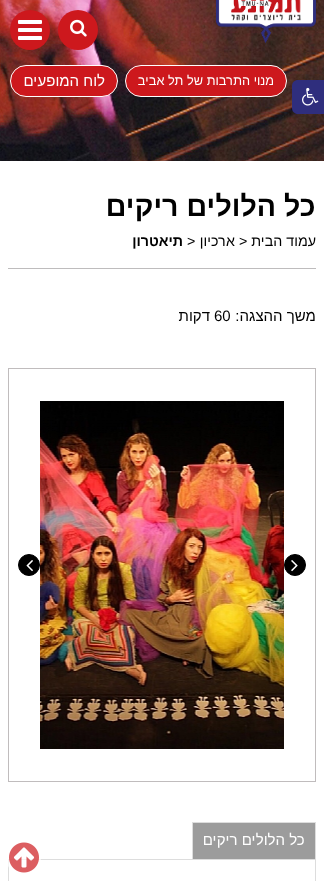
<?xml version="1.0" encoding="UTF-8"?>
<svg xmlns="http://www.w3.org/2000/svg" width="324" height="881">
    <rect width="100%" height="100%" fill="#FFFFFF"/>
    <image x="0" y="0" width="324" height="161" href="img_01.png"/>
    <circle cx="30" cy="30" r="20" fill="#CD181D"/>
    <image x="18" y="20" width="24" height="20" href="img_02.png"/>
    <path d="M 298 80 H 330 V 114 H 298 C 294.5 114 292 111.5 292 108 V 86 C 292 82.5 294.5 80 298 80 Z" fill="#2F2E7D"/>
    <image x="302" y="87" width="17" height="19" href="img_03.png"/>
    <image x="216" y="0" width="100" height="43" href="img_04.png"/>
    <circle cx="78" cy="30" r="20" fill="#CD181D"/>
    <image x="70" y="19" width="17" height="18" href="img_05.png"/>
    <rect x="125.5" y="65.5" width="161" height="31" rx="15.5" fill="#CD181D" stroke="#FFFFFF"/>
    <text x="274" y="85" font-family="Arimo" font-size="12.75" direction="rtl" fill="#FFFFFF">מנוי התרבות של תל אביב</text>
    <rect x="10.5" y="65.5" width="107" height="31" rx="15.5" fill="#CD181D" stroke="#FFFFFF"/>
    <text x="105" y="86" font-family="Arimo" font-size="15" direction="rtl" fill="#FFFFFF">לוח המופעים</text>
    <text x="316" y="216" font-family="Arimo" font-size="28.5" font-weight="700" direction="rtl" fill="#000000">כל הלולים ריקים</text>
    <rect x="8" y="268" width="308" height="1" fill="#BEBCBD"/>
    <text x="316" y="246" font-family="Arimo" font-size="14.25" direction="rtl" fill="#000000">עמוד הבית</text>
    <text x="239" y="246" font-family="Arimo" font-size="14.25" fill="#000000">&gt;</text>
    <text x="235" y="246" font-family="Arimo" font-size="14.25" direction="rtl" fill="#000000">ארכיון</text>
    <text x="187" y="246" font-family="Arimo" font-size="14.25" fill="#000000">&gt;</text>
    <text x="183" y="246" font-family="Arimo" font-size="14.25" font-weight="700" direction="rtl" fill="#000000">תיאטרון</text>
    <text x="316" y="321" font-family="Arimo" font-size="15" direction="rtl" fill="#000000">משך ההצגה:</text>
    <text x="214" y="321" font-family="Arimo" font-size="15" fill="#000000">60</text>
    <text x="210" y="321" font-family="Arimo" font-size="15" direction="rtl" fill="#000000">דקות</text>
    <rect x="8.5" y="368.5" width="307" height="413" fill="none" stroke="#C0BCBD"/>
    <image x="40" y="401" width="244" height="348" href="img_06.png"/>
    <circle cx="295" cy="565" r="10.5" fill="#000000" stroke="#000000"/>
    <image x="291" y="560" width="7" height="12" href="img_07.png"/>
    <circle cx="29" cy="565" r="10.5" fill="#000000" stroke="#000000"/>
    <image x="26" y="560" width="7" height="12" href="img_08.png"/>
    <rect x="8.5" y="859.5" width="307" height="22" fill="none" stroke="#DDDDDD"/>
    <rect x="192.5" y="822.5" width="123" height="37" fill="#9C9C9C" stroke="#DDDDDD"/>
    <text x="305" y="845" font-family="Arimo" font-size="15" direction="rtl" fill="#FFFFFF">כל הלולים ריקים</text>
    <ellipse cx="23.5" cy="857.5" rx="17.5" ry="18.5" fill="#FFFFFF" fill-opacity="0.7"/>
    <image x="9" y="842" width="30" height="31" href="img_09.png"/>
</svg>
